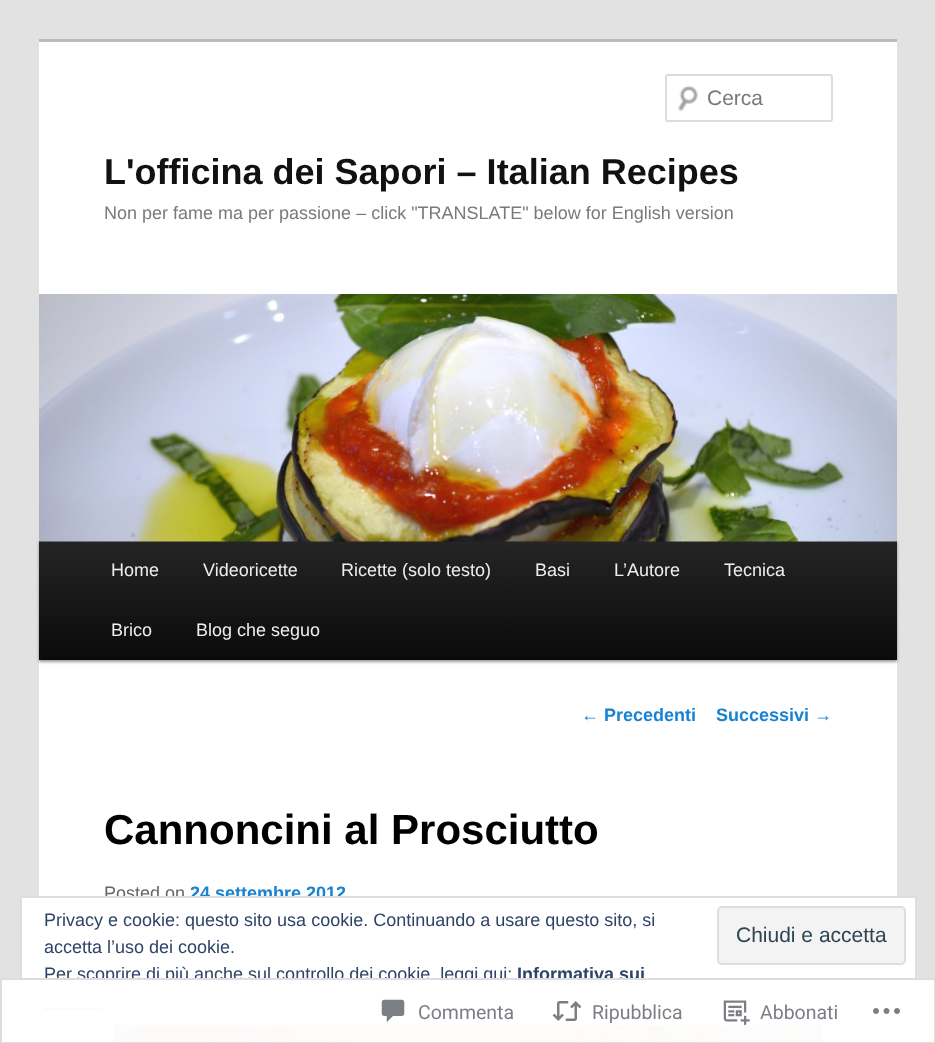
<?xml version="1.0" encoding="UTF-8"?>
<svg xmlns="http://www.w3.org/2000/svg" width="935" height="1043">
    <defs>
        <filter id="blur1" x="-50%" y="-200%" width="200%" height="500%"><feGaussianBlur stdDeviation="1.5"/></filter>
        <linearGradient id="g1" gradientUnits="userSpaceOnUse" x1="468" y1="540" x2="468" y2="660"><stop offset="0" stop-color="#252525"/><stop offset="1" stop-color="#0A0A0A"/></linearGradient>
    </defs>
    <rect width="100%" height="100%" fill="#E2E2E2"/>
    <rect x="39" y="42" width="858" height="1001" fill="#FFFFFF"/>
    <rect x="39" y="39" width="858" height="3" fill="#BBBBBB"/>
    <image x="678" y="85" width="20" height="27" href="img_01.png"/>
    <path d="M 668 76 H 830 L 831 78 V 76 C 831 76 830 75 830 75 H 668 C 667 75 666 76 666 76 V 78 C 666 77 667 76 668 76 Z" fill="#E6E6E6"/>
    <rect x="666" y="75" width="166" height="46" rx="2" fill="none" stroke="#DDDDDD" stroke-width="2"/>
    <text x="707" y="105" font-family="Liberation Sans" font-size="21" fill="#7A7A7A">Cerca</text>
    <text x="104" y="184" font-family="Liberation Sans" font-size="36" font-weight="700" fill="#111111">L'officina dei Sapori – Italian Recipes</text>
    <text x="104" y="219" font-family="Liberation Sans" font-size="18" fill="#7A7A7A">Non per fame ma per passione – click "TRANSLATE" below for English version</text>
    <rect x="39" y="542" width="858" height="120" fill="#000000" fill-opacity="0.4" filter="url(#blur1)"/>
    <rect x="39" y="541" width="858" height="119" fill="url(#g1)"/>
    <image x="39" y="294" width="858" height="248" href="img_02.png"/>
    <text x="111" y="576" font-family="Liberation Sans" font-size="18" fill="#EEEEEE">Home</text>
    <text x="203" y="576" font-family="Liberation Sans" font-size="18" fill="#EEEEEE">Videoricette</text>
    <text x="341" y="576" font-family="Liberation Sans" font-size="18" fill="#EEEEEE">Ricette (solo testo)</text>
    <text x="535" y="576" font-family="Liberation Sans" font-size="18" fill="#EEEEEE">Basi</text>
    <text x="614" y="576" font-family="Liberation Sans" font-size="18" fill="#EEEEEE">L’Autore</text>
    <text x="724" y="576" font-family="Liberation Sans" font-size="18" fill="#EEEEEE">Tecnica</text>
    <text x="111" y="636" font-family="Liberation Sans" font-size="18" fill="#EEEEEE">Brico</text>
    <text x="196" y="636" font-family="Liberation Sans" font-size="18" fill="#EEEEEE">Blog che seguo</text>
    <text x="581" y="721" font-family="Liberation Sans" font-size="18" fill="#1982D1">←</text>
    <text x="604" y="721" font-family="Liberation Sans" font-size="18" font-weight="700" fill="#1982D1">Precedenti</text>
    <text x="716" y="721" font-family="Liberation Sans" font-size="18" font-weight="700" fill="#1982D1">Successivi</text>
    <text x="814" y="721" font-family="Liberation Sans" font-size="18" fill="#1982D1">→</text>
    <text x="104" y="844" font-family="Liberation Sans" font-size="42" font-weight="700" fill="#000000">Cannoncini al Prosciutto</text>
    <text x="104" y="899" font-family="Liberation Sans" font-size="18" fill="#666666">Posted on</text>
    <text x="190" y="899" font-family="Liberation Sans" font-size="18" font-weight="700" fill="#1982D1">24 settembre 2012</text>
    <rect x="105" y="948" width="727" height="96" fill="none" stroke="#DDDDDD" stroke-width="2"/>
    <image x="114" y="1025" width="708" height="18" href="img_03.png"/>
    <rect x="21" y="897" width="895" height="127" fill="#FFFFFF" stroke="#DEDEDE" stroke-width="2"/>
    <text x="44" y="926" font-family="Liberation Sans" font-size="18" fill="#2E4467">Privacy e cookie: questo sito usa cookie. Continuando a usare questo sito, si</text>
    <rect x="718" y="907" width="187" height="57" rx="4" fill="#F3F3F3" stroke="#DEDEDE" stroke-width="2"/>
    <text x="736" y="942" font-family="Liberation Sans" font-size="21" fill="#2E4453">Chiudi e accetta</text>
    <text font-family="Liberation Sans" font-size="18" fill="#2E4467">
        <tspan x="44" y="953">accetta l’uso dei cookie.</tspan>
        <tspan x="44" y="980">Per scoprire di più anche sul controllo dei cookie, leggi qui:</tspan>
    </text>
    <text x="517" y="980" font-family="Liberation Sans" font-size="18" font-weight="700" fill="#2E4467">Informativa sui</text>
    <rect x="518" y="981" width="127" height="2" fill="#2E4467"/>
    <rect x="44" y="1008" width="57" height="2" fill="#2E4467"/>
    <rect x="0" y="978" width="935" height="65" fill="#FFFFFF" fill-opacity="0.98"/>
    <rect x="1" y="979" width="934" height="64" fill="none" stroke="#DCDCDE" stroke-opacity="0.98" stroke-width="2"/>
    <image x="381" y="999" width="24" height="24" href="img_04.png"/>
    <text x="418" y="1019" font-family="Roboto" font-size="19.5" fill="#7B7F85">Commenta</text>
    <image x="552" y="1001" width="30" height="20" href="img_05.png"/>
    <text x="592" y="1019" font-family="Roboto" font-size="19.5" fill="#7B7F85">Ripubblica</text>
    <image x="723" y="1000" width="27" height="25" href="img_06.png"/>
    <text x="760" y="1019" font-family="Roboto" font-size="19.5" fill="#7B7F85">Abbonati</text>
    <image x="873" y="1008" width="27" height="6" href="img_07.png"/>
</svg>
